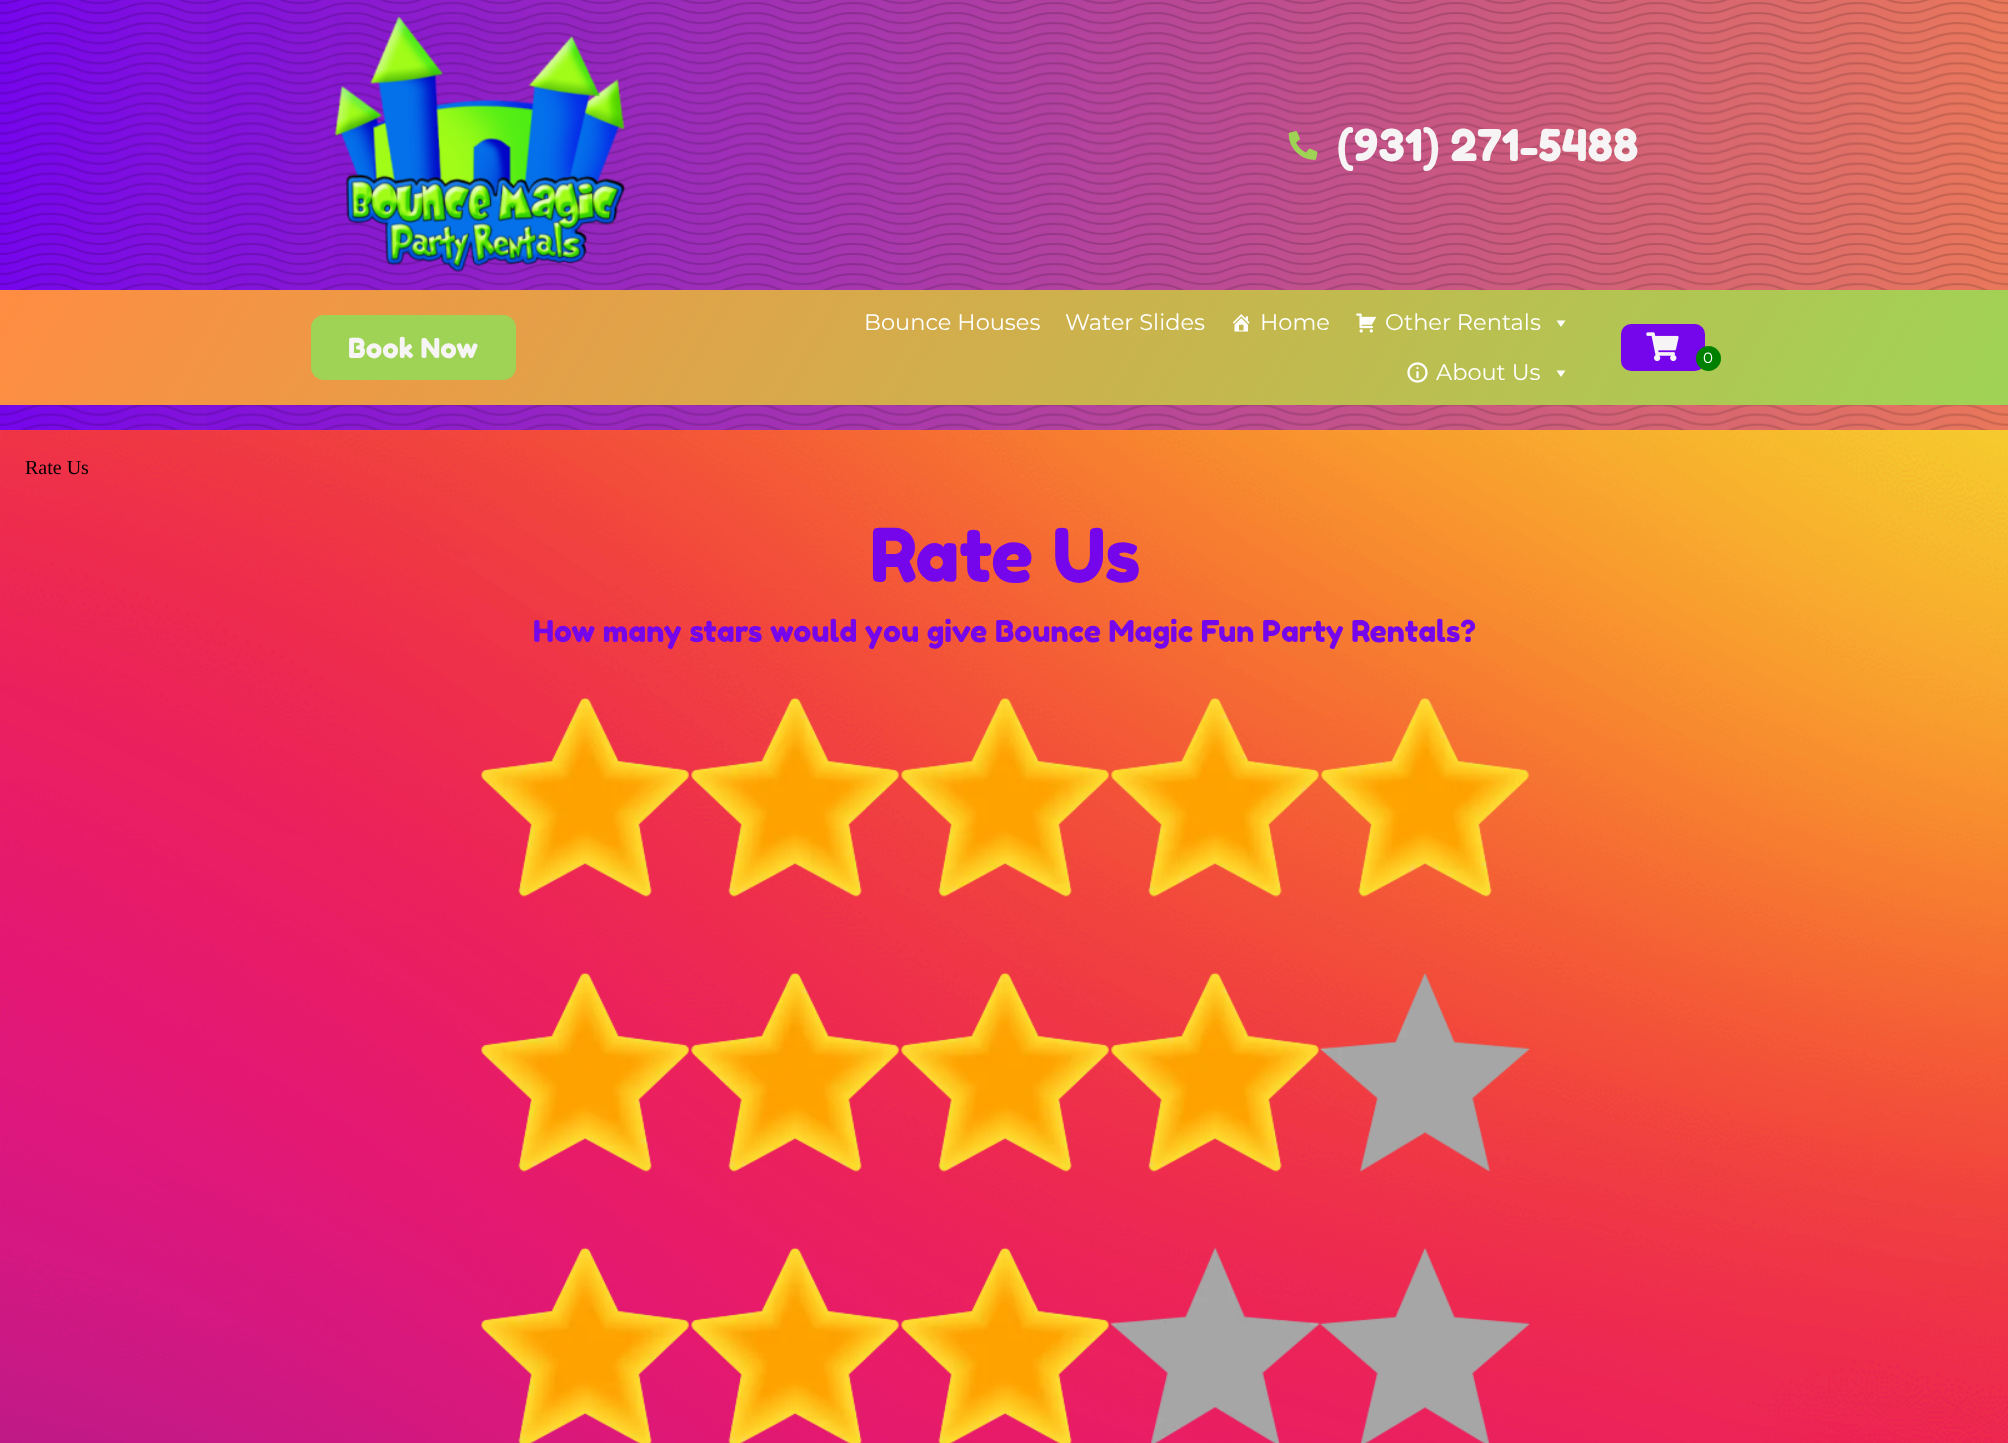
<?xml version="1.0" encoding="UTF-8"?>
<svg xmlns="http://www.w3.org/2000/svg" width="2008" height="1443">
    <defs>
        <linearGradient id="g1" gradientUnits="userSpaceOnUse" x1="0" y1="215" x2="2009" y2="215"><stop offset="0" stop-color="#7506EC"/><stop offset="1" stop-color="#FF8C42"/></linearGradient>
        <linearGradient id="g2" gradientUnits="userSpaceOnUse" x1="226" y1="-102" x2="1783" y2="797"><stop offset="0" stop-color="#FF8C42"/><stop offset="1" stop-color="#9FD356"/></linearGradient>
    </defs>
    <rect width="100%" height="100%" fill="#FFFFFF"/>
    <image x="0" y="430" width="2008" height="1013" href="img_01.png"/>
    <rect x="0" y="0" width="2008" height="430" fill="url(#g1)"/>
    <rect x="207" y="0" width="1801" height="430" fill="#7506EC" fill-opacity="0.15"/>
    <image x="0" y="0" width="2008" height="430" href="img_02.png"/>
    <image x="334" y="16" width="292" height="257" href="img_03.png"/>
    <image x="1288" y="131" width="30" height="29" href="img_04.png"/>
    <text x="1337" y="161" font-family="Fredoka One" font-size="43.75" fill="#F6F4F4">(931) 271-5488</text>
    <rect x="0" y="290" width="2008" height="115" fill="url(#g2)"/>
    <rect x="311" y="315" width="205" height="65" rx="13" fill="#9FD356"/>
    <text x="348" y="358" font-family="Fredoka One" font-size="27.5" fill="#F6F4F4">Book Now</text>
    <text x="864" y="330" font-family="Montserrat" font-size="22.5" fill="#FFFFFF">Bounce Houses</text>
    <text x="1065" y="330" font-family="Montserrat" font-size="22.5" fill="#FFFFFF">Water Slides</text>
    <image x="1232" y="314" width="18" height="18" href="img_05.png"/>
    <text x="1260" y="330" font-family="Montserrat" font-size="22.5" fill="#FFFFFF">Home</text>
    <image x="1356" y="313" width="21" height="20" href="img_06.png"/>
    <text x="1385" y="330" font-family="Montserrat" font-size="22.5" fill="#FFFFFF">Other Rentals</text>
    <path d="M 1565.5 320.5 L 1561 327 L 1556.5 320.5 Z" fill="#FFFFFF"/>
    <image x="1407" y="362" width="21" height="21" href="img_07.png"/>
    <text x="1436" y="380" font-family="Montserrat" font-size="22.5" fill="#FFFFFF">About Us</text>
    <path d="M 1565.5 370.5 L 1561 377 L 1556.5 370.5 Z" fill="#FFFFFF"/>
    <rect x="1621" y="324" width="84" height="47" rx="10" fill="#7506EC"/>
    <image x="1646" y="332" width="33" height="30" href="img_08.png"/>
    <circle cx="1708.5" cy="358.5" r="12.5" fill="#008000"/>
    <text x="1703" y="363" font-family="Montserrat" font-size="15" fill="#FFFFFF">0</text>
    <text x="25" y="474" font-family="Liberation Serif" font-size="20" fill="#000000">Rate Us</text>
    <text x="870" y="582" font-family="Fredoka One" font-size="74" fill="#7506EC">Rate Us</text>
    <text x="533" y="642" font-family="Fredoka One" font-size="30" fill="#7506EC">How many stars would you give Bounce Magic Fun Party Rentals?</text>
    <image x="481" y="697" width="1048" height="200" href="img_09.png"/>
    <image x="481" y="972" width="1049" height="200" href="img_10.png"/>
    <image x="481" y="1247" width="1049" height="196" href="img_11.png"/>
</svg>
